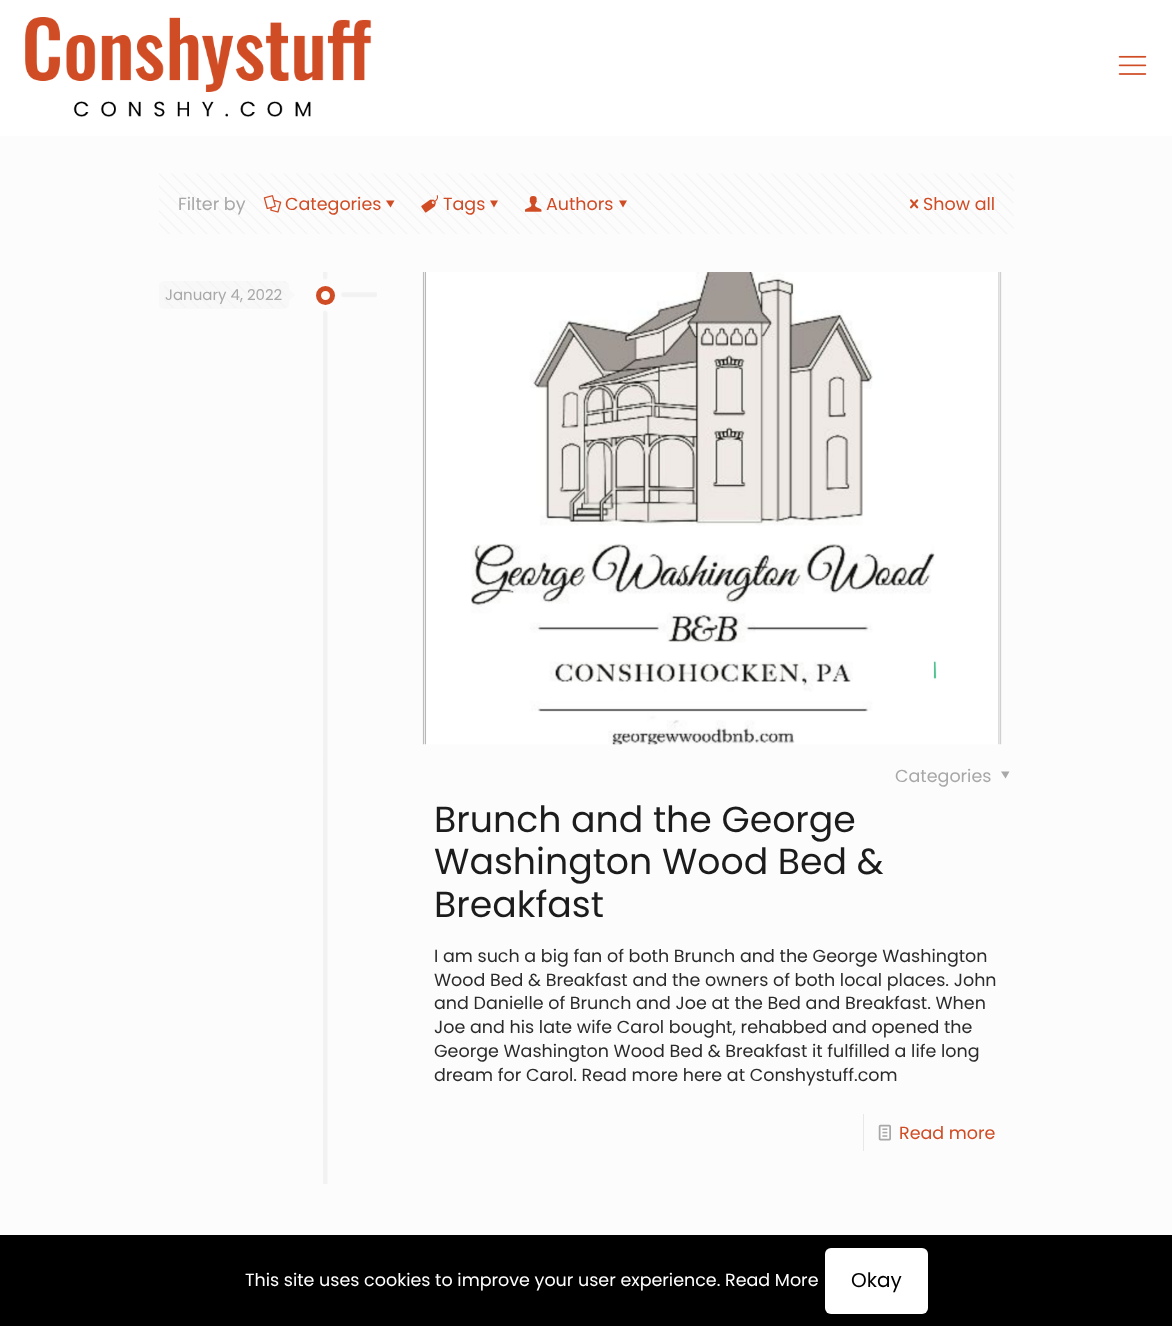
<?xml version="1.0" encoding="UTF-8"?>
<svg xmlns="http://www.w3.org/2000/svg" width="1172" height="1326">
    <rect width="100%" height="100%" fill="#FFFFFF"/>
    <image x="25" y="17" width="347" height="100" href="img_01.png"/>
    <image x="1118" y="55" width="29" height="20" href="img_02.png"/>
    <rect x="0" y="136" width="1172" height="1099" fill="#FCFCFC"/>
    <image x="159" y="173" width="855" height="61" href="img_03.png"/>
    <text x="178" y="210" font-family="Poppins" font-size="17.5" fill="#A8A8A8">Filter by</text>
    <image x="263" y="195" width="19" height="18" href="img_04.png"/>
    <text x="285" y="210" font-family="Poppins" font-size="17.5" fill="#D04C25">Categories</text>
    <path d="M 394.5 200.5 L 390.5 207.5 L 386 200.5 Z" fill="#D04C25"/>
    <image x="421" y="195" width="17" height="18" href="img_05.png"/>
    <text x="443" y="210" font-family="Poppins" font-size="17.5" fill="#D04C25">Tags</text>
    <path d="M 498 200.5 L 494 207.5 L 490 200.5 Z" fill="#D04C25"/>
    <image x="525" y="196" width="17" height="16" href="img_06.png"/>
    <text x="546" y="210" font-family="Poppins" font-size="17.5" fill="#D04C25">Authors</text>
    <path d="M 627 200.5 L 623 207.5 L 619 200.5 Z" fill="#D04C25"/>
    <image x="910" y="199" width="9" height="10" href="img_07.png"/>
    <text x="923" y="210" font-family="Poppins" font-size="17.5" fill="#D04C25">Show all</text>
    <image x="323" y="272" width="54" height="912" href="img_08.png"/>
    <rect x="159" y="281" width="130" height="28" rx="5" fill="#F8F8F8"/>
    <image x="164" y="281" width="122" height="27" href="img_09.png"/>
    <text x="165" y="300" font-family="Poppins" font-size="15" fill="#A8A8A8">January 4, 2022</text>
    <path d="M 289 301 V 289 L 295 295 Z" fill="#F8F8F8"/>
    <circle cx="325.5" cy="295.5" r="7" fill="none" stroke="#D04C25" stroke-width="5"/>
    <image x="422" y="272" width="580" height="473" href="img_10.png"/>
    <text x="895" y="782" font-family="Poppins" font-size="17.5" fill="#A8A8A8">Categories</text>
    <path d="M 1009.5 771.5 L 1005.5 778.5 L 1001 771.5 Z" fill="#A8A8A8"/>
    <text font-family="Poppins" font-size="36.25" fill="#1C1C1C">
        <tspan x="434" y="832">Brunch and the George</tspan>
        <tspan x="434" y="874">Washington Wood Bed &amp;</tspan>
        <tspan x="434" y="917">Breakfast</tspan>
    </text>
    <text font-family="Poppins" font-size="17.5" fill="#2B2B2B">
        <tspan x="434" y="962">I am such a big fan of both Brunch and the George Washington</tspan>
        <tspan x="434" y="986">Wood Bed &amp; Breakfast and the owners of both local places. John</tspan>
        <tspan x="434" y="1009">and Danielle of Brunch and Joe at the Bed and Breakfast. When</tspan>
        <tspan x="434" y="1033">Joe and his late wife Carol bought, rehabbed and opened the</tspan>
        <tspan x="434" y="1057">George Washington Wood Bed &amp; Breakfast it fulfilled a life long</tspan>
        <tspan x="434" y="1081">dream for Carol. Read more here at Conshystuff.com</tspan>
    </text>
    <rect x="863" y="1114" width="1" height="37" fill="#E8E8E8"/>
    <image x="878" y="1124" width="13" height="17" href="img_11.png"/>
    <text x="899" y="1139" font-family="Poppins" font-size="17.5" fill="#D04C25">Read more</text>
    <rect x="0" y="1235" width="1172" height="91" fill="#000000"/>
    <text x="245" y="1286" font-family="Poppins" font-size="17.5" fill="#FFFFFF">This site uses cookies to improve your user experience. Read More</text>
    <rect x="825" y="1248" width="103" height="66" rx="6" fill="#FFFFFF"/>
    <text x="851" y="1287" font-family="Poppins" font-size="20" fill="#000000">Okay</text>
</svg>
